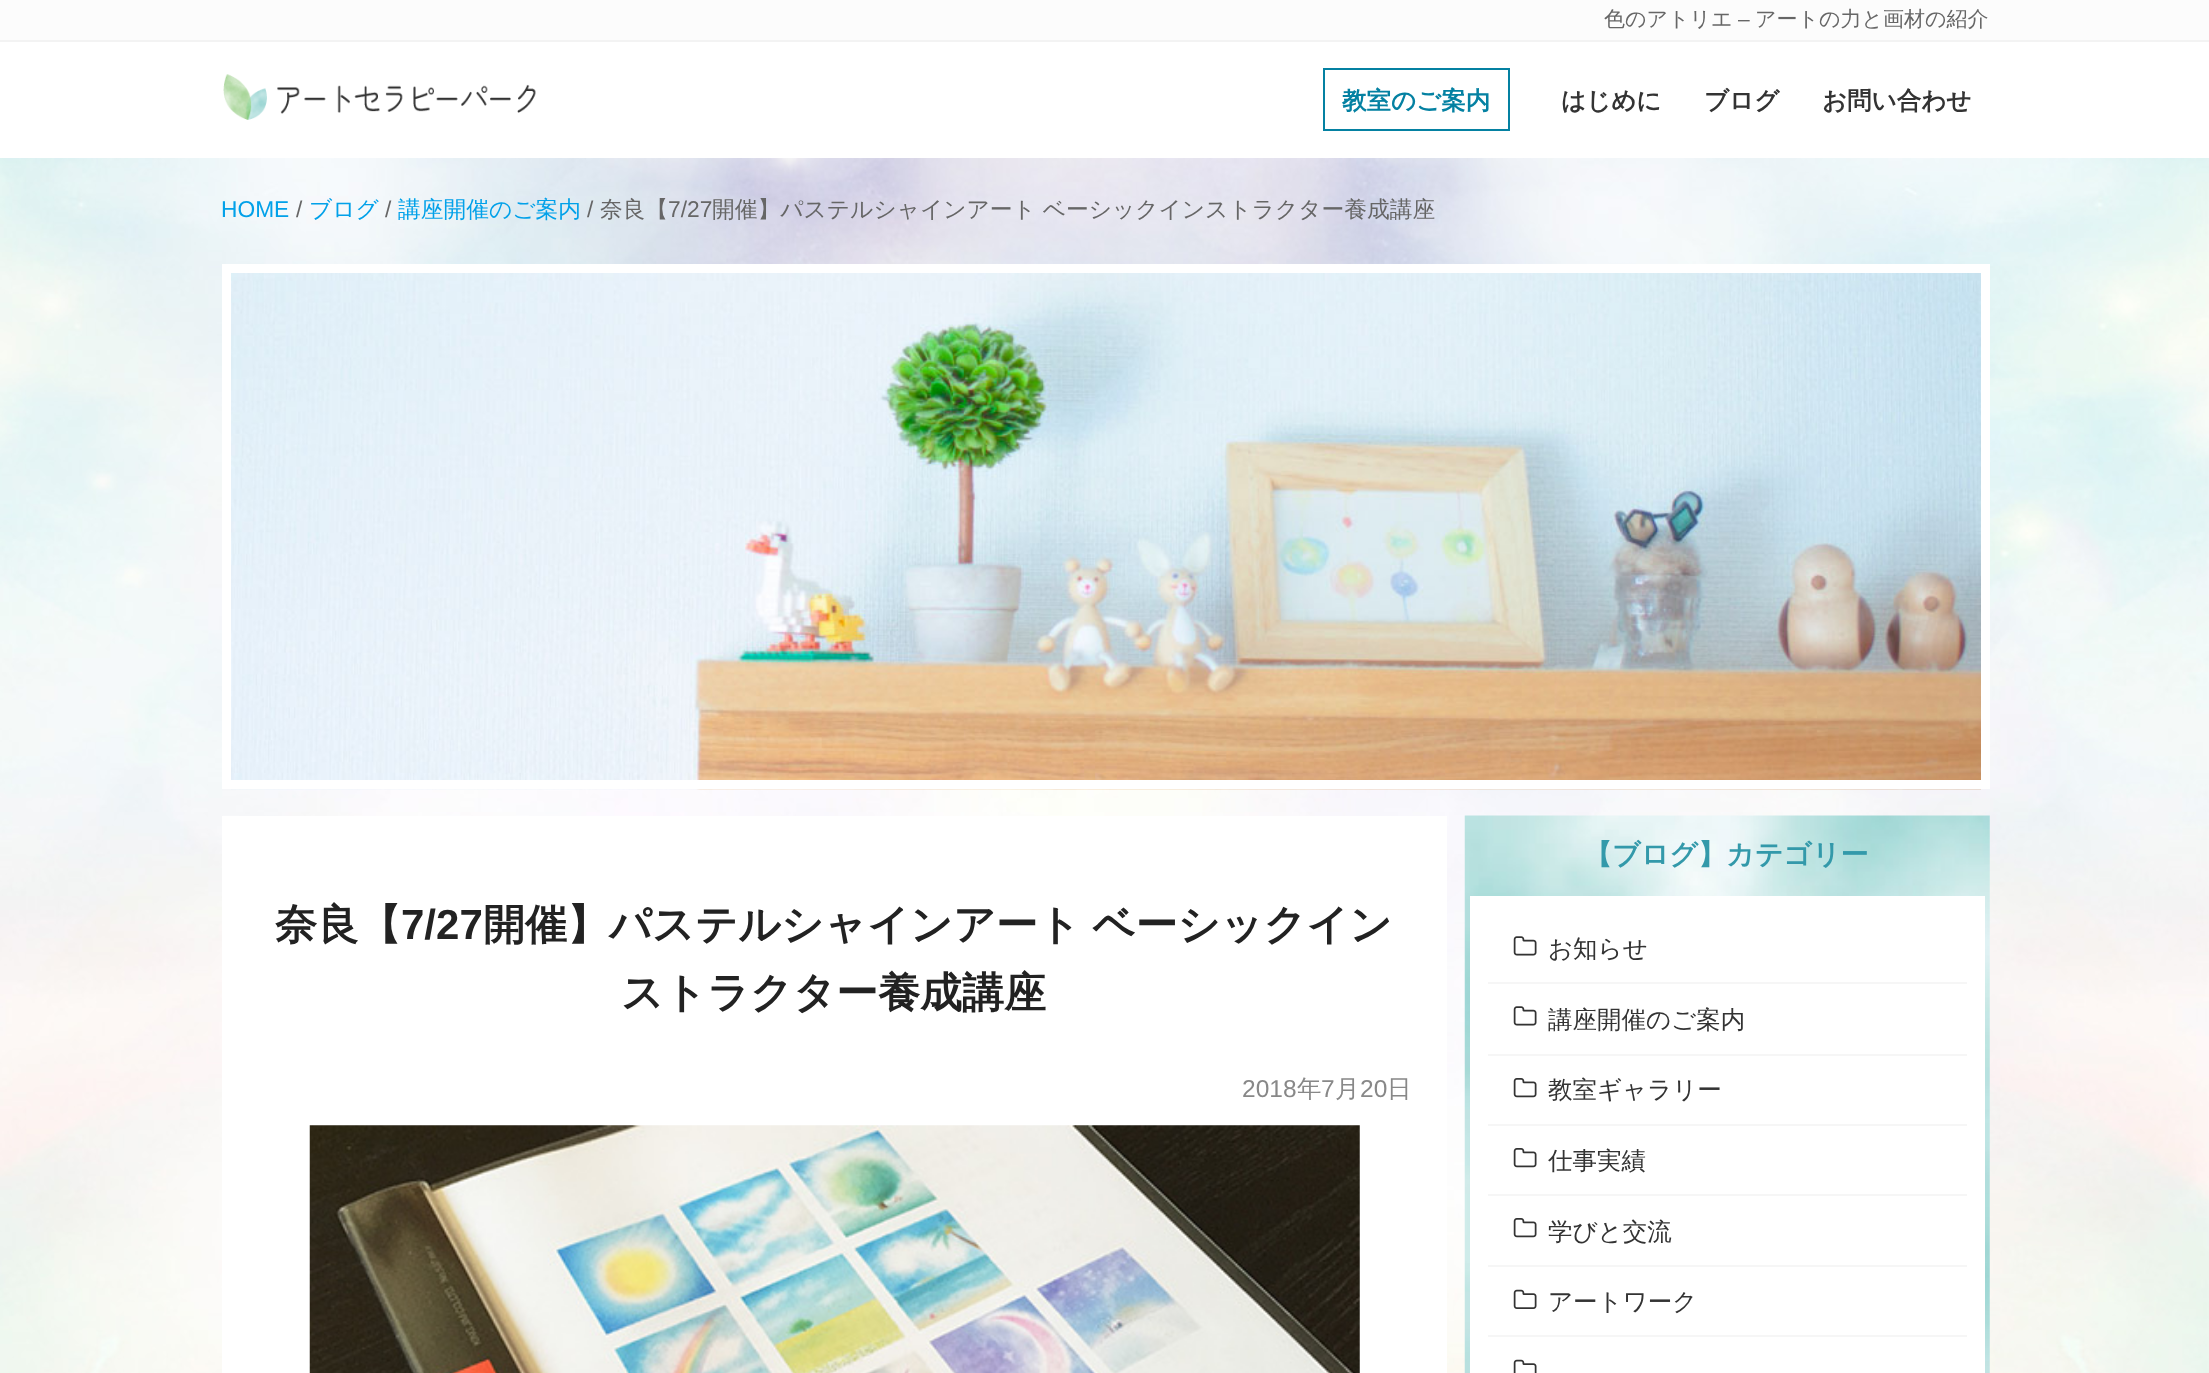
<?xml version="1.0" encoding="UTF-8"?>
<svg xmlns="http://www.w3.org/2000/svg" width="2209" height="1373">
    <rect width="100%" height="100%" fill="#FFFFFF"/>
    <image x="0" y="158" width="2209" height="1215" href="img_01.png"/>
    <rect x="0" y="0" width="2209" height="40" fill="#FCFCFC"/>
    <rect x="0" y="40" width="2209" height="2" fill="#F3F3F3"/>
    <text x="1604" y="26" font-family="WenQuanYi Zen Hei" font-size="21" font-weight="500" fill="#666666">色のアトリエ</text>
    <text x="1738" y="26" font-family="Liberation Sans" font-size="21" fill="#666666">–</text>
    <text x="1755" y="26" font-family="WenQuanYi Zen Hei" font-size="21" font-weight="500" fill="#666666">アートの力と画材の紹介</text>
    <image x="223" y="74" width="313" height="46" href="img_02.png"/>
    <rect x="1324" y="69" width="185" height="61" fill="none" stroke="#0481A2" stroke-width="2"/>
    <text x="1342" y="109" font-family="WenQuanYi Zen Hei" font-size="24.5" font-weight="700" fill="#0481A2">教室のご案内</text>
    <text x="1561" y="109" font-family="WenQuanYi Zen Hei" font-size="24.5" font-weight="700" fill="#333333">はじめに</text>
    <text x="1704" y="109" font-family="WenQuanYi Zen Hei" font-size="24.5" font-weight="700" fill="#333333">ブログ</text>
    <text x="1822" y="109" font-family="WenQuanYi Zen Hei" font-size="24.5" font-weight="700" fill="#333333">お問い合わせ</text>
    <text x="221" y="217" font-family="Liberation Sans" font-size="22.75" fill="#02A1E9">HOME</text>
    <text x="296" y="217" font-family="Liberation Sans" font-size="22.75" fill="#666666">/</text>
    <text x="309" y="217" font-family="WenQuanYi Zen Hei" font-size="22.75" font-weight="500" fill="#02A1E9">ブログ</text>
    <text x="385" y="217" font-family="Liberation Sans" font-size="22.75" fill="#666666">/</text>
    <text x="398" y="217" font-family="WenQuanYi Zen Hei" font-size="22.75" font-weight="500" fill="#02A1E9">講座開催のご案内</text>
    <text x="587" y="217" font-family="Liberation Sans" font-size="22.75" fill="#666666">/</text>
    <text x="600" y="217" font-family="WenQuanYi Zen Hei" font-size="22.75" font-weight="500" fill="#666666">奈良【</text>
    <text x="668" y="217" font-family="Liberation Sans" font-size="22.75" fill="#666666">7/27</text>
    <text x="712" y="217" font-family="WenQuanYi Zen Hei" font-size="22.75" font-weight="500" fill="#666666">開催】パステルシャインアート ベーシックインストラクター養成講座</text>
    <image x="231" y="273" width="1750" height="517" href="img_03.png"/>
    <rect x="226.5" y="268.5" width="1759" height="516" fill="none" stroke="#FFFFFF" stroke-width="9"/>
    <rect x="222" y="816" width="1225" height="557" fill="#FFFFFF"/>
    <text x="275" y="939" font-family="WenQuanYi Zen Hei" font-size="42" font-weight="700" fill="#222222">奈良【</text>
    <text x="401" y="939" font-family="Liberation Sans" font-size="42" font-weight="700" fill="#222222">7/27</text>
    <text x="483" y="939" word-spacing="-1" font-family="WenQuanYi Zen Hei" font-size="42" font-weight="700" fill="#222222">開催】パステルシャインアート ベーシックイン</text>
    <text x="621" y="1007" font-family="WenQuanYi Zen Hei" font-size="42" font-weight="700" fill="#222222">ストラクター養成講座</text>
    <text x="1242" y="1097" font-family="Liberation Sans" font-size="24.5" fill="#888888">2018</text>
    <text x="1297" y="1097" font-family="WenQuanYi Zen Hei" font-size="24.5" font-weight="500" fill="#888888">年</text>
    <text x="1321" y="1097" font-family="Liberation Sans" font-size="24.5" fill="#888888">7</text>
    <text x="1335" y="1097" font-family="WenQuanYi Zen Hei" font-size="24.5" font-weight="500" fill="#888888">月</text>
    <text x="1360" y="1097" font-family="Liberation Sans" font-size="24.5" fill="#888888">20</text>
    <text x="1387" y="1097" font-family="WenQuanYi Zen Hei" font-size="24.5" font-weight="500" fill="#888888">日</text>
    <image x="309" y="1125" width="1051" height="248" href="img_04.png"/>
    <image x="1464" y="815" width="526" height="558" href="img_05.png"/>
    <text x="1584" y="864" font-family="WenQuanYi Zen Hei" font-size="28" font-weight="700" fill="#3399AA">【ブログ】カテゴリー</text>
    <rect x="1470" y="896" width="515" height="477" fill="#FFFFFF"/>
    <rect x="1488" y="982" width="479" height="2" fill="#F6F6F6"/>
    <image x="1513" y="936" width="24" height="20" href="img_06.png"/>
    <text x="1548" y="957" font-family="WenQuanYi Zen Hei" font-size="24.5" font-weight="500" fill="#333333">お知らせ</text>
    <rect x="1488" y="1054" width="479" height="2" fill="#F6F6F6"/>
    <image x="1513" y="1006" width="24" height="20" href="img_06.png"/>
    <text x="1548" y="1028" font-family="WenQuanYi Zen Hei" font-size="24.5" font-weight="500" fill="#333333">講座開催のご案内</text>
    <rect x="1488" y="1124" width="479" height="2" fill="#F6F6F6"/>
    <image x="1513" y="1078" width="24" height="20" href="img_07.png"/>
    <text x="1548" y="1098" font-family="WenQuanYi Zen Hei" font-size="24.5" font-weight="500" fill="#333333">教室ギャラリー</text>
    <rect x="1488" y="1194" width="479" height="2" fill="#F6F6F6"/>
    <image x="1513" y="1148" width="24" height="20" href="img_07.png"/>
    <text x="1548" y="1169" font-family="WenQuanYi Zen Hei" font-size="24.5" font-weight="500" fill="#333333">仕事実績</text>
    <rect x="1488" y="1265" width="479" height="2" fill="#F6F6F6"/>
    <image x="1513" y="1218" width="24" height="20" href="img_07.png"/>
    <text x="1548" y="1240" font-family="WenQuanYi Zen Hei" font-size="24.5" font-weight="500" fill="#333333">学びと交流</text>
    <rect x="1488" y="1335" width="479" height="2" fill="#F6F6F6"/>
    <image x="1513" y="1289" width="24" height="20" href="img_08.png"/>
    <text x="1548" y="1310" font-family="WenQuanYi Zen Hei" font-size="24.5" font-weight="500" fill="#333333">アートワーク</text>
    <image x="1513" y="1359" width="24" height="14" href="img_09.png"/>
</svg>
